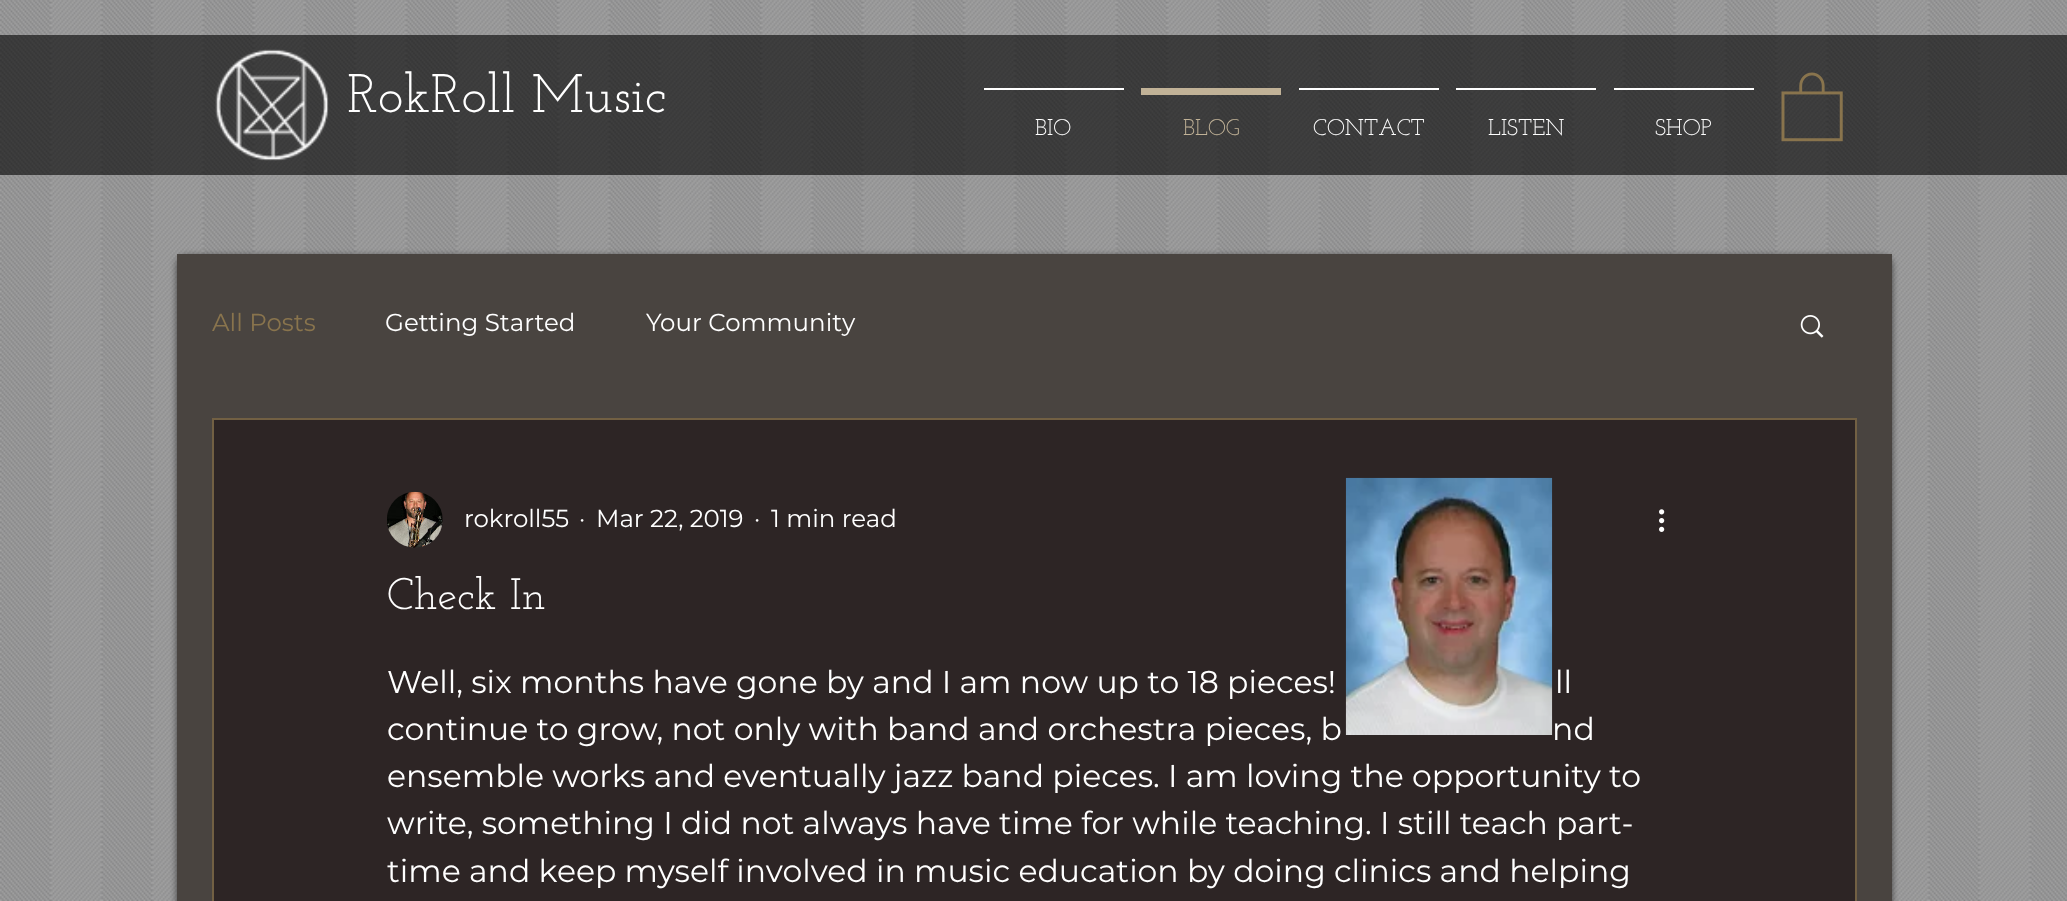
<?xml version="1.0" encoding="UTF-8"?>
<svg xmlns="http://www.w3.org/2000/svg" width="2067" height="901">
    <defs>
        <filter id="blur1" x="-50%" y="-200%" width="200%" height="500%"><feGaussianBlur stdDeviation="3.5"/></filter>
    </defs>
    <rect width="100%" height="100%" fill="#A7A7A7"/>
    <image x="0" y="0" width="2067" height="901" href="img_01.png"/>
    <rect x="0" y="35" width="2067" height="140" fill="#000000" fill-opacity="0.6"/>
    <image x="215" y="49" width="114" height="112" href="img_02.png"/>
    <text x="347" y="112" font-family="Josefin Slab" font-size="54.25" fill="#FFFFFF">RokRoll Music</text>
    <rect x="984" y="88" width="140" height="2" fill="#FFFFFF"/>
    <text x="1035" y="135" font-family="Josefin Slab" font-size="22.75" fill="#FFFFFF">BIO</text>
    <rect x="1141" y="88" width="140" height="7" fill="#C1B297"/>
    <text x="1183" y="135" font-family="Josefin Slab" font-size="22.75" fill="#C1B297">BLOG</text>
    <rect x="1299" y="88" width="140" height="2" fill="#FFFFFF"/>
    <text x="1313" y="135" font-family="Josefin Slab" font-size="22.75" fill="#FFFFFF">CONTACT</text>
    <rect x="1456" y="88" width="140" height="2" fill="#FFFFFF"/>
    <text x="1488" y="135" font-family="Josefin Slab" font-size="22.75" fill="#FFFFFF">LISTEN</text>
    <rect x="1614" y="88" width="140" height="2" fill="#FFFFFF"/>
    <text x="1655" y="135" font-family="Josefin Slab" font-size="22.75" fill="#FFFFFF">SHOP</text>
    <image x="1781" y="72" width="62" height="70" href="img_03.png"/>
    <rect x="177" y="256" width="1715" height="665" rx="9" fill="#000000" fill-opacity="0.6" filter="url(#blur1)"/>
    <rect x="177" y="254" width="1715" height="647" fill="#494440"/>
    <text x="212" y="331" font-family="Montserrat" font-size="24.5" fill="#89744D">All Posts</text>
    <text x="385" y="331" font-family="Montserrat" font-size="24.5" fill="#FFFFFF">Getting Started</text>
    <text x="646" y="331" font-family="Montserrat" font-size="24.5" fill="#FFFFFF">Your Community</text>
    <image x="1800" y="315" width="24" height="23" href="img_04.png"/>
    <rect x="213" y="419" width="1643" height="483" fill="#2D2525" stroke="#726043" stroke-width="2"/>
    <image x="387" y="491" width="56" height="57" href="img_05.png"/>
    <text x="464" y="527" font-family="Montserrat" font-size="24.5" fill="#FFFFFF">rokroll55</text>
    <text x="579" y="527" font-family="Montserrat" font-size="24.5" fill="#FFFFFF">·</text>
    <text x="596" y="527" font-family="Montserrat" font-size="24.5" fill="#FFFFFF">Mar 22, 2019</text>
    <text x="754" y="527" font-family="Montserrat" font-size="24.5" fill="#FFFFFF">·</text>
    <text x="771" y="527" font-family="Montserrat" font-size="24.5" fill="#FFFFFF">1 min read</text>
    <image x="1659" y="509" width="6" height="23" href="img_06.png"/>
    <text x="387" y="609" font-family="Josefin Slab" font-size="44" fill="#FFFFFF">Check In</text>
    <text x="387" y="693" font-family="Montserrat" font-size="31.5" fill="#FFFFFF">Well, six months have gone by and I am now up to 18 pieces!</text>
    <text x="1555" y="693" font-family="Montserrat" font-size="31.5" fill="#FFFFFF">ll</text>
    <text x="387" y="740" font-family="Montserrat" font-size="31.5" fill="#FFFFFF">continue to grow, not only with band and orchestra pieces, b</text>
    <text x="1552" y="740" font-family="Montserrat" font-size="31.5" fill="#FFFFFF">nd</text>
    <text font-family="Montserrat" font-size="31.5" fill="#FFFFFF">
        <tspan x="387" y="787">ensemble works and eventually jazz band pieces. I am loving the opportunity to</tspan>
        <tspan x="387" y="834">write, something I did not always have time for while teaching. I still teach part-</tspan>
        <tspan x="387" y="882">time and keep myself involved in music education by doing clinics and helping</tspan>
    </text>
    <image x="1345" y="477" width="208" height="258" href="img_07.png"/>
</svg>
